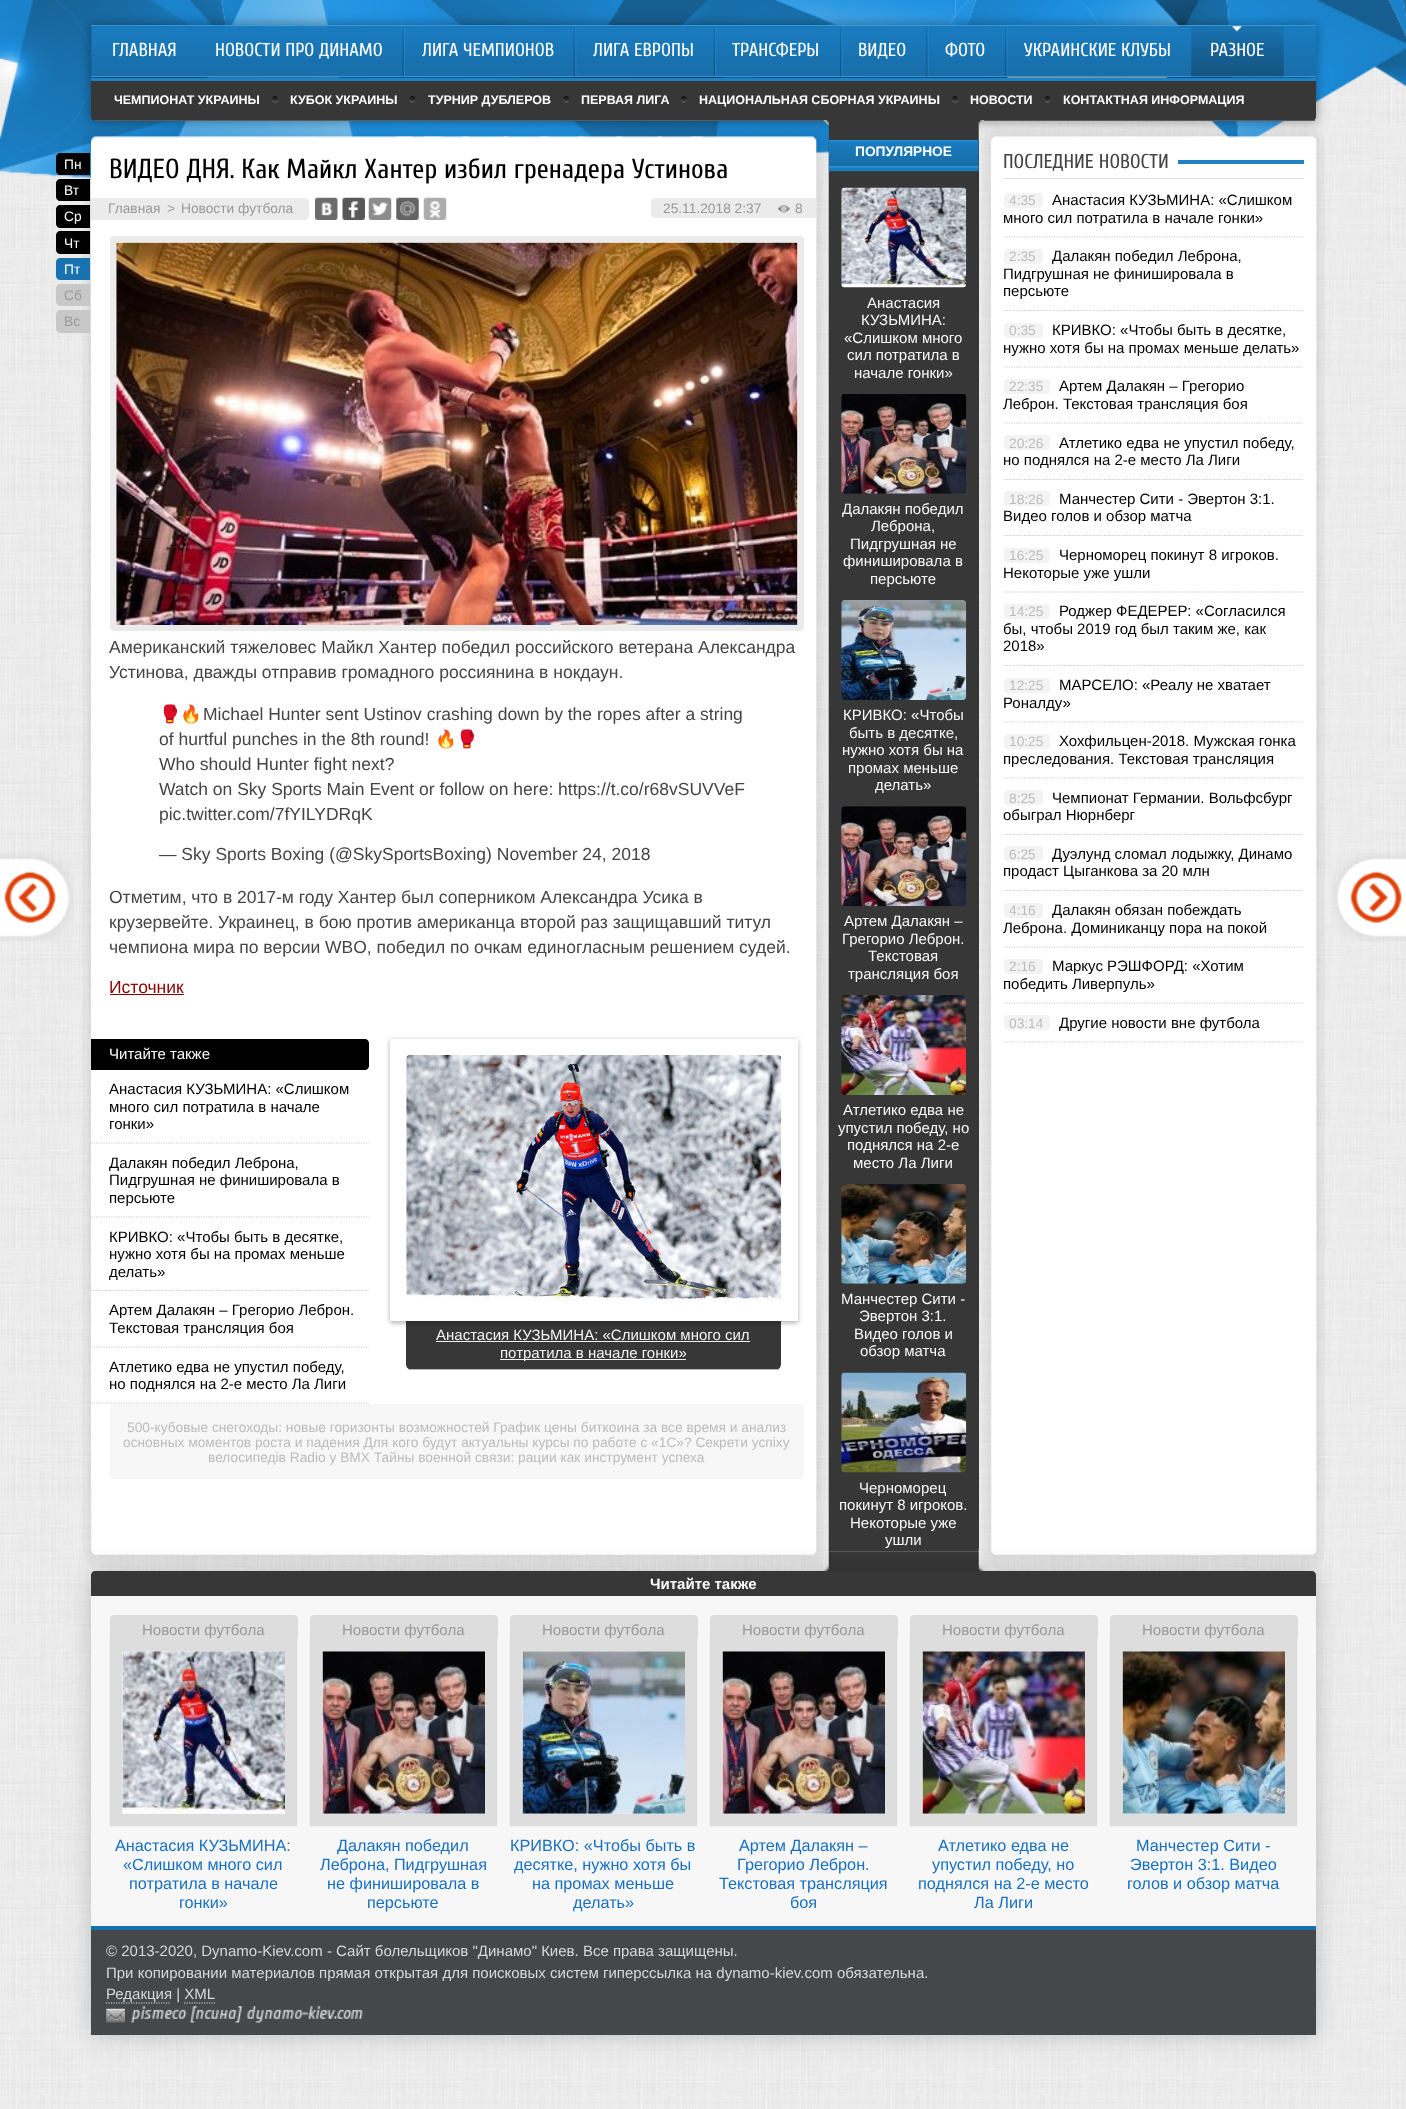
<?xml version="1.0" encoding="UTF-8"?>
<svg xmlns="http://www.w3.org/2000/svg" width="1406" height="2109">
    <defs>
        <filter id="blur1" x="-50%" y="-200%" width="200%" height="500%"><feGaussianBlur stdDeviation="6"/></filter>
        <filter id="blur2" x="-50%" y="-200%" width="200%" height="500%"><feGaussianBlur stdDeviation="12.5"/></filter>
        <filter id="blur3" x="-50%" y="-200%" width="200%" height="500%"><feGaussianBlur stdDeviation="2.5"/></filter>
    </defs>
    <rect width="100%" height="100%" fill="#FFFFFF"/>
    <image x="0" y="0" width="1406" height="2109" href="img_01.png"/>
    <image x="0" y="0" width="1406" height="179" href="img_02.png"/>
    <rect x="91" y="25" width="1225" height="96" fill="#000000" fill-opacity="0.4" filter="url(#blur1)"/>
    <image x="91" y="26" width="1226" height="51" href="img_03.png"/>
    <rect x="91" y="25" width="1225" height="1" fill="#3C99D6"/>
    <rect x="91" y="76" width="1225" height="1" fill="#2D99E1"/>
    <text x="112" y="56" font-family="Cuprum" font-size="18.75" fill="#FFFFFF">ГЛАВНАЯ</text>
    <text x="215" y="56" font-family="Cuprum" font-size="18.75" fill="#FFFFFF">НОВОСТИ ПРО ДИНАМО</text>
    <image x="402" y="26" width="3" height="51" href="img_04.png"/>
    <text x="422" y="56" font-family="Cuprum" font-size="18.75" fill="#FFFFFF">ЛИГА ЧЕМПИОНОВ</text>
    <image x="573" y="26" width="4" height="51" href="img_05.png"/>
    <text x="593" y="56" font-family="Cuprum" font-size="18.75" fill="#FFFFFF">ЛИГА ЕВРОПЫ</text>
    <image x="713" y="26" width="4" height="51" href="img_06.png"/>
    <text x="732" y="56" font-family="Cuprum" font-size="18.75" fill="#FFFFFF">ТРАНСФЕРЫ</text>
    <image x="840" y="26" width="3" height="51" href="img_07.png"/>
    <text x="858" y="56" font-family="Cuprum" font-size="18.75" fill="#FFFFFF">ВИДЕО</text>
    <image x="926" y="26" width="3" height="51" href="img_08.png"/>
    <text x="945" y="56" font-family="Cuprum" font-size="18.75" fill="#FFFFFF">ФОТО</text>
    <image x="1005" y="26" width="3" height="51" href="img_09.png"/>
    <text x="1024" y="56" font-family="Cuprum" font-size="18.75" fill="#FFFFFF">УКРАИНСКИЕ КЛУБЫ</text>
    <image x="1191" y="26" width="93" height="51" href="img_10.png"/>
    <image x="1232" y="26" width="10" height="6" href="img_11.png"/>
    <text x="1210" y="56" font-family="Cuprum" font-size="18.75" fill="#FFFFFF">РАЗНОЕ</text>
    <rect x="91" y="78" width="1225" height="3" fill="#1E81C2"/>
    <path d="M 91 81 H 1316 V 117 C 1316 119 1314 121 1312 121 H 95 C 93 121 91 119 91 117 Z" fill="#373737"/>
    <rect x="94" y="120" width="1221" height="1" fill="#5C5C5C"/>
    <text x="114" y="104" font-family="Liberation Sans" font-size="12.5" font-weight="700" fill="#FFFFFF">ЧЕМПИОНАТ УКРАИНЫ</text>
    <image x="272" y="96" width="6" height="7" href="img_12.png"/>
    <text x="290" y="104" font-family="Liberation Sans" font-size="12.5" font-weight="700" fill="#FFFFFF">КУБОК УКРАИНЫ</text>
    <image x="410" y="96" width="5" height="7" href="img_13.png"/>
    <text x="428" y="104" font-family="Liberation Sans" font-size="12.5" font-weight="700" fill="#FFFFFF">ТУРНИР ДУБЛЕРОВ</text>
    <image x="563" y="96" width="6" height="7" href="img_14.png"/>
    <text x="581" y="104" font-family="Liberation Sans" font-size="12.5" font-weight="700" fill="#FFFFFF">ПЕРВАЯ ЛИГА</text>
    <image x="681" y="96" width="6" height="7" href="img_15.png"/>
    <text x="699" y="104" font-family="Liberation Sans" font-size="12.5" font-weight="700" fill="#FFFFFF">НАЦИОНАЛЬНАЯ СБОРНАЯ УКРАИНЫ</text>
    <image x="952" y="96" width="6" height="7" href="img_12.png"/>
    <text x="970" y="104" font-family="Liberation Sans" font-size="12.5" font-weight="700" fill="#FFFFFF">НОВОСТИ</text>
    <image x="1045" y="96" width="5" height="7" href="img_13.png"/>
    <text x="1063" y="104" font-family="Liberation Sans" font-size="12.5" font-weight="700" fill="#FFFFFF">КОНТАКТНАЯ ИНФОРМАЦИЯ</text>
    <image x="83" y="120" width="1242" height="20" href="img_16.png"/>
    <image x="83" y="1551" width="1242" height="20" href="img_36.png"/>
    <rect x="91" y="1571" width="1225" height="464" rx="4" fill="#000000" fill-opacity="0.2" filter="url(#blur2)"/>
    <image x="82" y="140" width="1243" height="1412" href="img_17.png"/>
    <rect x="91" y="140" width="725" height="1351" rx="4" fill="#FFFFFF"/>
    <path d="M 60 153 H 90 V 175 H 60 C 58 175 56 173 56 171 V 157 C 56 155 58 153 60 153 Z" fill="#000000"/>
    <text x="64" y="169" font-family="Liberation Sans" font-size="13.75" fill="#FFFFFF">Пн</text>
    <path d="M 60 179 H 90 V 201 H 60 C 58 201 56 199 56 197 V 183 C 56 181 58 179 60 179 Z" fill="#000000"/>
    <text x="64" y="195" font-family="Liberation Sans" font-size="13.75" fill="#FFFFFF">Вт</text>
    <path d="M 60 205 H 90 V 228 H 60 C 58 228 56 226 56 224 V 209 C 56 207 58 205 60 205 Z" fill="#000000"/>
    <text x="64" y="221" font-family="Liberation Sans" font-size="13.75" fill="#FFFFFF">Ср</text>
    <path d="M 60 231 H 90 V 254 H 60 C 58 254 56 252 56 250 V 235 C 56 233 58 231 60 231 Z" fill="#000000"/>
    <text x="64" y="248" font-family="Liberation Sans" font-size="13.75" fill="#FFFFFF">Чт</text>
    <path d="M 60 258 H 90 V 280 H 60 C 58 280 56 278 56 276 V 262 C 56 260 58 258 60 258 Z" fill="#1872B0"/>
    <text x="64" y="274" font-family="Liberation Sans" font-size="13.75" fill="#FFFFFF">Пт</text>
    <path d="M 60 284 H 90 V 306 H 60 C 58 306 56 304 56 302 V 288 C 56 286 58 284 60 284 Z" fill="#C8C8C8"/>
    <text x="64" y="300" font-family="Liberation Sans" font-size="13.75" fill="#999999">Сб</text>
    <path d="M 60 310 H 90 V 333 H 60 C 58 333 56 331 56 329 V 314 C 56 312 58 310 60 310 Z" fill="#C8C8C8"/>
    <text x="64" y="326" font-family="Liberation Sans" font-size="13.75" fill="#999999">Вс</text>
    <text x="109" y="178" font-family="Cuprum" font-size="27.5" fill="#000000">ВИДЕО ДНЯ. Как Майкл Хантер избил гренадера Устинова</text>
    <path d="M 91 198 H 305 C 307 198 309 200 309 202 V 216 C 309 218 307 220 305 220 H 91 Z" fill="#EBEBEB"/>
    <text x="108" y="213" font-family="Liberation Sans" font-size="13.75" fill="#999999">Главная</text>
    <text x="167" y="213" font-family="Liberation Sans" font-size="13.75" fill="#999999">&gt;</text>
    <text x="181" y="213" font-family="Liberation Sans" font-size="13.75" fill="#999999">Новости футбола</text>
    <image x="315" y="197" width="23" height="23" href="img_18.png"/>
    <image x="342" y="197" width="23" height="23" href="img_19.png"/>
    <image x="368" y="197" width="24" height="23" href="img_20.png"/>
    <image x="396" y="197" width="23" height="23" href="img_21.png"/>
    <image x="423" y="197" width="24" height="23" href="img_22.png"/>
    <path d="M 655 198 H 816 V 218 H 655 C 653 218 651 216 651 214 V 202 C 651 200 653 198 655 198 Z" fill="#EBEBEB"/>
    <text x="663" y="213" font-family="Liberation Sans" font-size="13.75" fill="#999999">25.11.2018 2:37</text>
    <image x="777" y="205" width="13" height="8" href="img_23.png"/>
    <text x="795" y="213" font-family="Liberation Sans" font-size="13.75" fill="#999999">8</text>
    <image x="0" y="853" width="74" height="88" href="img_24.png"/>
    <rect x="113" y="239" width="688" height="389" rx="1" fill="none" stroke="#EBEBEB" stroke-width="6"/>
    <image x="116" y="242" width="682" height="383" href="img_25.png"/>
    <text font-family="Liberation Sans" font-size="17.5" fill="#444444">
        <tspan x="109" y="653">Американский тяжеловес Майкл Хантер победил российского ветерана Александра</tspan>
        <tspan x="109" y="678">Устинова, дважды отправив громадного россиянина в нокдаун.</tspan>
    </text>
    <text x="159" y="720" font-family="Noto Color Emoji" font-size="17.5" fill="#444444">🥊🔥</text>
    <text x="203" y="720" font-family="Liberation Sans" font-size="17.5" fill="#444444">Michael Hunter sent Ustinov crashing down by the ropes after a string</text>
    <text x="159" y="745" font-family="Liberation Sans" font-size="17.5" fill="#444444">of hurtful punches in the 8th round!</text>
    <text x="435" y="745" font-family="Noto Color Emoji" font-size="17.5" fill="#444444">🔥🥊</text>
    <text font-family="Liberation Sans" font-size="17.5" fill="#444444">
        <tspan x="159" y="770">Who should Hunter fight next?</tspan>
        <tspan x="159" y="795">Watch on Sky Sports Main Event or follow on here: https://t.co/r68vSUVVeF</tspan>
        <tspan x="159" y="820">pic.twitter.com/7fYILYDRqK</tspan>
    </text>
    <text x="159" y="860" font-family="Liberation Sans" font-size="17.5" fill="#444444">— Sky Sports Boxing (@SkySportsBoxing) November 24, 2018</text>
    <text font-family="Liberation Sans" font-size="17.5" fill="#444444">
        <tspan x="109" y="903">Отметим, что в 2017-м году Хантер был соперником Александра Усика в</tspan>
        <tspan x="109" y="928">крузервейте. Украинец, в бою против американца второй раз защищавший титул</tspan>
        <tspan x="109" y="953">чемпиона мира по версии WBO, победил по очкам единогласным решением судей.</tspan>
    </text>
    <text x="109" y="993" font-family="Liberation Sans" font-size="17.5" fill="#8C0000">Источник</text>
    <rect x="110" y="994" width="74" height="1" fill="#8C0000"/>
    <image x="1332" y="853" width="74" height="88" href="img_26.png"/>
    <path d="M 91 1039 H 365 C 367 1039 369 1041 369 1043 V 1066 C 369 1068 367 1070 365 1070 H 91 Z" fill="#000000"/>
    <text x="109" y="1059" font-family="Liberation Sans" font-size="15" fill="#FFFFFF">Читайте также</text>
    <path d="M 91 1143 H 369" fill="none" stroke="#CACACA" stroke-width="1.2" stroke-dasharray="1.25 1.25"/>
    <text font-family="Liberation Sans" font-size="15" fill="#000000">
        <tspan x="109" y="1094">Анастасия КУЗЬМИНА: «Слишком</tspan>
        <tspan x="109" y="1112">много сил потратила в начале</tspan>
        <tspan x="109" y="1129">гонки»</tspan>
    </text>
    <path d="M 91 1217 H 369" fill="none" stroke="#CACACA" stroke-width="1.2" stroke-dasharray="1.25 1.25"/>
    <text font-family="Liberation Sans" font-size="15" fill="#000000">
        <tspan x="109" y="1168">Далакян победил Леброна,</tspan>
        <tspan x="109" y="1185">Пидгрушная не финишировала в</tspan>
        <tspan x="109" y="1203">персьюте</tspan>
    </text>
    <path d="M 91 1290.5 H 369" fill="none" stroke="#CACACA" stroke-width="1.2" stroke-dasharray="1.25 1.25"/>
    <text font-family="Liberation Sans" font-size="15" fill="#000000">
        <tspan x="109" y="1242">КРИВКО: «Чтобы быть в десятке,</tspan>
        <tspan x="109" y="1259">нужно хотя бы на промах меньше</tspan>
        <tspan x="109" y="1277">делать»</tspan>
    </text>
    <path d="M 91 1347 H 369" fill="none" stroke="#CACACA" stroke-width="1.2" stroke-dasharray="1.25 1.25"/>
    <text font-family="Liberation Sans" font-size="15" fill="#000000">
        <tspan x="109" y="1315">Артем Далакян – Грегорио Леброн.</tspan>
        <tspan x="109" y="1333">Текстовая трансляция боя</tspan>
    </text>
    <path d="M 91 1403 H 369" fill="none" stroke="#CACACA" stroke-width="1.2" stroke-dasharray="1.25 1.25"/>
    <text font-family="Liberation Sans" font-size="15" fill="#000000">
        <tspan x="109" y="1372">Атлетико едва не упустил победу,</tspan>
        <tspan x="109" y="1389">но поднялся на 2-е место Ла Лиги</tspan>
    </text>
    <path d="M 406 1321 H 781 V 1364 C 781 1367.5 778.5 1370 775 1370 H 412 C 408.5 1370 406 1367.5 406 1364 Z" fill="#373737"/>
    <rect x="390" y="1040" width="408" height="283" fill="#000000" fill-opacity="0.3" filter="url(#blur3)"/>
    <rect x="390" y="1039" width="408" height="282" fill="#FFFFFF"/>
    <image x="406" y="1055" width="376" height="246" href="img_27.png"/>
    <rect x="410" y="1369" width="369" height="1" fill="#B7B7B7"/>
    <text x="436" y="1340" font-family="Liberation Sans" font-size="15" fill="#F3F3F3">Анастасия КУЗЬМИНА: «Слишком много сил</text>
    <rect x="436" y="1341" width="314" height="1" fill="#F3F3F3"/>
    <rect x="500" y="1359" width="186" height="1" fill="#F3F3F3"/>
    <text x="500" y="1358" font-family="Liberation Sans" font-size="15" fill="#F3F3F3">потратила в начале гонки»</text>
    <rect x="110" y="1404" width="694" height="75" rx="4" fill="#F7F7F7"/>
    <text x="127" y="1432" font-family="Liberation Sans" font-size="13.75" fill="#BCBCBC">500-кубовые снегоходы: новые горизонты возможностей График цены биткоина за все время и анализ</text>
    <text x="123" y="1447" font-family="Liberation Sans" font-size="13.75" fill="#BCBCBC">основных моментов роста и падения Для кого будут актуальны курсы по работе с «1С»? Секрети успіху</text>
    <text x="208" y="1462" font-family="Liberation Sans" font-size="13.75" fill="#BCBCBC">велосипедів Radio у BMX Тайны военной связи: рации как инструмент успеха</text>
    <path d="M 829 140 H 979 V 1547 C 979 1549 977 1551 975 1551 H 833 C 831 1551 829 1549 829 1547 Z" fill="#373737"/>
    <image x="828" y="140" width="151" height="32" href="img_28.png"/>
    <text x="855" y="156" font-family="Liberation Sans" font-size="13.75" font-weight="700" fill="#FFFFFF">ПОПУЛЯРНОЕ</text>
    <image x="841" y="187" width="126" height="101" href="img_29.png"/>
    <text x="867" y="308" font-family="Liberation Sans" font-size="15" fill="#F9F9F9">Анастасия</text>
    <text x="861" y="325" font-family="Liberation Sans" font-size="15" fill="#F9F9F9">КУЗЬМИНА:</text>
    <text x="844" y="343" font-family="Liberation Sans" font-size="15" fill="#F9F9F9">«Слишком много</text>
    <text x="847" y="360" font-family="Liberation Sans" font-size="15" fill="#F9F9F9">сил потратила в</text>
    <text x="854" y="378" font-family="Liberation Sans" font-size="15" fill="#F9F9F9">начале гонки»</text>
    <image x="841" y="394" width="126" height="100" href="img_30.png"/>
    <text x="842" y="514" font-family="Liberation Sans" font-size="15" fill="#F9F9F9">Далакян победил</text>
    <text x="871" y="531" font-family="Liberation Sans" font-size="15" fill="#F9F9F9">Леброна,</text>
    <text x="850" y="549" font-family="Liberation Sans" font-size="15" fill="#F9F9F9">Пидгрушная не</text>
    <text x="843" y="566" font-family="Liberation Sans" font-size="15" fill="#F9F9F9">финишировала в</text>
    <text x="870" y="584" font-family="Liberation Sans" font-size="15" fill="#F9F9F9">персьюте</text>
    <image x="841" y="600" width="126" height="100" href="img_31.png"/>
    <text x="843" y="720" font-family="Liberation Sans" font-size="15" fill="#F9F9F9">КРИВКО: «Чтобы</text>
    <text x="849" y="738" font-family="Liberation Sans" font-size="15" fill="#F9F9F9">быть в десятке,</text>
    <text x="842" y="755" font-family="Liberation Sans" font-size="15" fill="#F9F9F9">нужно хотя бы на</text>
    <text x="848" y="773" font-family="Liberation Sans" font-size="15" fill="#F9F9F9">промах меньше</text>
    <text x="875" y="790" font-family="Liberation Sans" font-size="15" fill="#F9F9F9">делать»</text>
    <image x="841" y="806" width="126" height="101" href="img_32.png"/>
    <text x="844" y="926" font-family="Liberation Sans" font-size="15" fill="#F9F9F9">Артем Далакян –</text>
    <text x="842" y="944" font-family="Liberation Sans" font-size="15" fill="#F9F9F9">Грегорио Леброн.</text>
    <text x="868" y="961" font-family="Liberation Sans" font-size="15" fill="#F9F9F9">Текстовая</text>
    <text x="848" y="979" font-family="Liberation Sans" font-size="15" fill="#F9F9F9">трансляция боя</text>
    <image x="841" y="995" width="126" height="100" href="img_33.png"/>
    <text x="843" y="1115" font-family="Liberation Sans" font-size="15" fill="#F9F9F9">Атлетико едва не</text>
    <text x="838" y="1133" font-family="Liberation Sans" font-size="15" fill="#F9F9F9">упустил победу, но</text>
    <text x="847" y="1150" font-family="Liberation Sans" font-size="15" fill="#F9F9F9">поднялся на 2-е</text>
    <text x="853" y="1168" font-family="Liberation Sans" font-size="15" fill="#F9F9F9">место Ла Лиги</text>
    <image x="841" y="1183" width="126" height="101" href="img_34.png"/>
    <text x="841" y="1304" font-family="Liberation Sans" font-size="15" fill="#F9F9F9">Манчестер Сити -</text>
    <text x="859" y="1321" font-family="Liberation Sans" font-size="15" fill="#F9F9F9">Эвертон 3:1.</text>
    <text x="854" y="1339" font-family="Liberation Sans" font-size="15" fill="#F9F9F9">Видео голов и</text>
    <text x="860" y="1356" font-family="Liberation Sans" font-size="15" fill="#F9F9F9">обзор матча</text>
    <image x="841" y="1372" width="126" height="101" href="img_35.png"/>
    <text x="859" y="1493" font-family="Liberation Sans" font-size="15" fill="#F9F9F9">Черноморец</text>
    <text x="839" y="1510" font-family="Liberation Sans" font-size="15" fill="#F9F9F9">покинут 8 игроков.</text>
    <text x="850" y="1528" font-family="Liberation Sans" font-size="15" fill="#F9F9F9">Некоторые уже</text>
    <text x="885" y="1545" font-family="Liberation Sans" font-size="15" fill="#F9F9F9">ушли</text>
    <rect x="991" y="140" width="325" height="903" rx="4" fill="#FFFFFF"/>
    <text x="1003" y="168" font-family="Cuprum" font-size="20" fill="#444444">ПОСЛЕДНИЕ НОВОСТИ</text>
    <rect x="1178" y="160" width="126" height="4" fill="#1E81C2"/>
    <rect x="1004" y="178" width="300" height="1" fill="#E0E0E0"/>
    <path d="M 1004 237 H 1304" fill="none" stroke="#CACACA" stroke-width="1.2" stroke-dasharray="1.25 1.25"/>
    <rect x="1004" y="193" width="39" height="15" rx="4" fill="#F3F3F3"/>
    <text x="1009" y="205" font-family="Liberation Sans" font-size="13.75" fill="#BCBCBC">4:35</text>
    <text x="1052" y="205" font-family="Liberation Sans" font-size="15" fill="#000000">Анастасия КУЗЬМИНА: «Слишком</text>
    <text x="1003" y="223" font-family="Liberation Sans" font-size="15" fill="#000000">много сил потратила в начале гонки»</text>
    <path d="M 1004 310.5 H 1304" fill="none" stroke="#CACACA" stroke-width="1.2" stroke-dasharray="1.25 1.25"/>
    <rect x="1004" y="249" width="39" height="15" rx="4" fill="#F3F3F3"/>
    <text x="1009" y="261" font-family="Liberation Sans" font-size="13.75" fill="#BCBCBC">2:35</text>
    <text x="1052" y="261" font-family="Liberation Sans" font-size="15" fill="#000000">Далакян победил Леброна,</text>
    <text font-family="Liberation Sans" font-size="15" fill="#000000">
        <tspan x="1003" y="279">Пидгрушная не финишировала в</tspan>
        <tspan x="1003" y="296">персьюте</tspan>
    </text>
    <path d="M 1004 367 H 1304" fill="none" stroke="#CACACA" stroke-width="1.2" stroke-dasharray="1.25 1.25"/>
    <rect x="1004" y="323" width="39" height="15" rx="4" fill="#F3F3F3"/>
    <text x="1009" y="335" font-family="Liberation Sans" font-size="13.75" fill="#BCBCBC">0:35</text>
    <text x="1052" y="335" font-family="Liberation Sans" font-size="15" fill="#000000">КРИВКО: «Чтобы быть в десятке,</text>
    <text x="1003" y="353" font-family="Liberation Sans" font-size="15" fill="#000000">нужно хотя бы на промах меньше делать»</text>
    <path d="M 1004 423 H 1304" fill="none" stroke="#CACACA" stroke-width="1.2" stroke-dasharray="1.25 1.25"/>
    <rect x="1004" y="379" width="46" height="15" rx="4" fill="#F3F3F3"/>
    <text x="1009" y="391" font-family="Liberation Sans" font-size="13.75" fill="#BCBCBC">22:35</text>
    <text x="1059" y="391" font-family="Liberation Sans" font-size="15" fill="#000000">Артем Далакян – Грегорио</text>
    <text x="1003" y="409" font-family="Liberation Sans" font-size="15" fill="#000000">Леброн. Текстовая трансляция боя</text>
    <path d="M 1004 479.5 H 1304" fill="none" stroke="#CACACA" stroke-width="1.2" stroke-dasharray="1.25 1.25"/>
    <rect x="1004" y="435" width="46" height="15" rx="4" fill="#F3F3F3"/>
    <text x="1009" y="448" font-family="Liberation Sans" font-size="13.75" fill="#BCBCBC">20:26</text>
    <text x="1059" y="448" font-family="Liberation Sans" font-size="15" fill="#000000">Атлетико едва не упустил победу,</text>
    <text x="1003" y="465" font-family="Liberation Sans" font-size="15" fill="#000000">но поднялся на 2-е место Ла Лиги</text>
    <path d="M 1004 535.5 H 1304" fill="none" stroke="#CACACA" stroke-width="1.2" stroke-dasharray="1.25 1.25"/>
    <rect x="1004" y="491" width="46" height="15" rx="4" fill="#F3F3F3"/>
    <text x="1009" y="504" font-family="Liberation Sans" font-size="13.75" fill="#BCBCBC">18:26</text>
    <text x="1059" y="504" font-family="Liberation Sans" font-size="15" fill="#000000">Манчестер Сити - Эвертон 3:1.</text>
    <text x="1003" y="521" font-family="Liberation Sans" font-size="15" fill="#000000">Видео голов и обзор матча</text>
    <path d="M 1004 592 H 1304" fill="none" stroke="#CACACA" stroke-width="1.2" stroke-dasharray="1.25 1.25"/>
    <rect x="1004" y="548" width="46" height="15" rx="4" fill="#F3F3F3"/>
    <text x="1009" y="560" font-family="Liberation Sans" font-size="13.75" fill="#BCBCBC">16:25</text>
    <text x="1059" y="560" font-family="Liberation Sans" font-size="15" fill="#000000">Черноморец покинут 8 игроков.</text>
    <text x="1003" y="578" font-family="Liberation Sans" font-size="15" fill="#000000">Некоторые уже ушли</text>
    <path d="M 1004 665.5 H 1304" fill="none" stroke="#CACACA" stroke-width="1.2" stroke-dasharray="1.25 1.25"/>
    <rect x="1004" y="604" width="46" height="15" rx="4" fill="#F3F3F3"/>
    <text x="1009" y="616" font-family="Liberation Sans" font-size="13.75" fill="#BCBCBC">14:25</text>
    <text x="1059" y="616" font-family="Liberation Sans" font-size="15" fill="#000000">Роджер ФЕДЕРЕР: «Согласился</text>
    <text font-family="Liberation Sans" font-size="15" fill="#000000">
        <tspan x="1003" y="634">бы, чтобы 2019 год был таким же, как</tspan>
        <tspan x="1003" y="651">2018»</tspan>
    </text>
    <path d="M 1004 722 H 1304" fill="none" stroke="#CACACA" stroke-width="1.2" stroke-dasharray="1.25 1.25"/>
    <rect x="1004" y="678" width="46" height="15" rx="4" fill="#F3F3F3"/>
    <text x="1009" y="690" font-family="Liberation Sans" font-size="13.75" fill="#BCBCBC">12:25</text>
    <text x="1059" y="690" font-family="Liberation Sans" font-size="15" fill="#000000">МАРСЕЛО: «Реалу не хватает</text>
    <text x="1003" y="708" font-family="Liberation Sans" font-size="15" fill="#000000">Роналду»</text>
    <path d="M 1004 778 H 1304" fill="none" stroke="#CACACA" stroke-width="1.2" stroke-dasharray="1.25 1.25"/>
    <rect x="1004" y="734" width="46" height="15" rx="4" fill="#F3F3F3"/>
    <text x="1009" y="746" font-family="Liberation Sans" font-size="13.75" fill="#BCBCBC">10:25</text>
    <text x="1059" y="746" font-family="Liberation Sans" font-size="15" fill="#000000">Хохфильцен-2018. Мужская гонка</text>
    <text x="1003" y="764" font-family="Liberation Sans" font-size="15" fill="#000000">преследования. Текстовая трансляция</text>
    <path d="M 1004 834.5 H 1304" fill="none" stroke="#CACACA" stroke-width="1.2" stroke-dasharray="1.25 1.25"/>
    <rect x="1004" y="790" width="39" height="15" rx="4" fill="#F3F3F3"/>
    <text x="1009" y="803" font-family="Liberation Sans" font-size="13.75" fill="#BCBCBC">8:25</text>
    <text x="1052" y="803" font-family="Liberation Sans" font-size="15" fill="#000000">Чемпионат Германии. Вольфсбург</text>
    <text x="1003" y="820" font-family="Liberation Sans" font-size="15" fill="#000000">обыграл Нюрнберг</text>
    <path d="M 1004 890.5 H 1304" fill="none" stroke="#CACACA" stroke-width="1.2" stroke-dasharray="1.25 1.25"/>
    <rect x="1004" y="846" width="39" height="15" rx="4" fill="#F3F3F3"/>
    <text x="1009" y="859" font-family="Liberation Sans" font-size="13.75" fill="#BCBCBC">6:25</text>
    <text x="1052" y="859" font-family="Liberation Sans" font-size="15" fill="#000000">Дуэлунд сломал лодыжку, Динамо</text>
    <text x="1003" y="876" font-family="Liberation Sans" font-size="15" fill="#000000">продаст Цыганкова за 20 млн</text>
    <path d="M 1004 947 H 1304" fill="none" stroke="#CACACA" stroke-width="1.2" stroke-dasharray="1.25 1.25"/>
    <rect x="1004" y="903" width="39" height="15" rx="4" fill="#F3F3F3"/>
    <text x="1009" y="915" font-family="Liberation Sans" font-size="13.75" fill="#BCBCBC">4:16</text>
    <text x="1052" y="915" font-family="Liberation Sans" font-size="15" fill="#000000">Далакян обязан побеждать</text>
    <text x="1003" y="933" font-family="Liberation Sans" font-size="15" fill="#000000">Леброна. Доминиканцу пора на покой</text>
    <path d="M 1004 1003 H 1304" fill="none" stroke="#CACACA" stroke-width="1.2" stroke-dasharray="1.25 1.25"/>
    <rect x="1004" y="959" width="39" height="15" rx="4" fill="#F3F3F3"/>
    <text x="1009" y="971" font-family="Liberation Sans" font-size="13.75" fill="#BCBCBC">2:16</text>
    <text x="1052" y="971" font-family="Liberation Sans" font-size="15" fill="#000000">Маркус РЭШФОРД: «Хотим</text>
    <text x="1003" y="989" font-family="Liberation Sans" font-size="15" fill="#000000">победить Ливерпуль»</text>
    <path d="M 1004 1042 H 1304" fill="none" stroke="#CACACA" stroke-width="1.2" stroke-dasharray="1.25 1.25"/>
    <rect x="1004" y="1015" width="46" height="15" rx="4" fill="#F3F3F3"/>
    <text x="1009" y="1028" font-family="Liberation Sans" font-size="13.75" fill="#BCBCBC">03:14</text>
    <text x="1059" y="1028" font-family="Liberation Sans" font-size="15" fill="#000000">Другие новости вне футбола</text>
    <path d="M 95 1571 H 1312 C 1314 1571 1316 1573 1316 1575 V 1596 H 91 V 1575 C 91 1573 93 1571 95 1571 Z" fill="#373737"/>
    <text x="650" y="1589" font-family="Liberation Sans" font-size="15" font-weight="700" fill="#FFFFFF">Читайте также</text>
    <rect x="91" y="1596" width="1225" height="330" fill="#F7F7F7"/>
    <path d="M 116 1645 H 291 V 1820 H 116 Z" fill="none" stroke="#DDDDDD" stroke-width="12.5"/>
    <path d="M 114 1615 H 294 C 296 1615 298 1617 298 1619 V 1639 H 110 V 1619 C 110 1617 112 1615 114 1615 Z" fill="#DDDDDD"/>
    <text x="142" y="1635" font-family="Liberation Sans" font-size="15" fill="#999999">Новости футбола</text>
    <image x="122" y="1651" width="163" height="163" href="img_37.png"/>
    <text x="115" y="1851" font-family="Liberation Sans" font-size="16.25" fill="#176FC1">Анастасия КУЗЬМИНА:</text>
    <text x="123" y="1870" font-family="Liberation Sans" font-size="16.25" fill="#176FC1">«Слишком много сил</text>
    <text x="129" y="1889" font-family="Liberation Sans" font-size="16.25" fill="#176FC1">потратила в начале</text>
    <text x="179" y="1908" font-family="Liberation Sans" font-size="16.25" fill="#176FC1">гонки»</text>
    <path d="M 316 1645 H 491 V 1820 H 316 Z" fill="none" stroke="#DDDDDD" stroke-width="12.5"/>
    <path d="M 314 1615 H 494 C 496 1615 498 1617 498 1619 V 1639 H 310 V 1619 C 310 1617 312 1615 314 1615 Z" fill="#DDDDDD"/>
    <text x="342" y="1635" font-family="Liberation Sans" font-size="15" fill="#999999">Новости футбола</text>
    <image x="322" y="1651" width="163" height="163" href="img_38.png"/>
    <text x="337" y="1851" font-family="Liberation Sans" font-size="16.25" fill="#176FC1">Далакян победил</text>
    <text x="320" y="1870" font-family="Liberation Sans" font-size="16.25" fill="#176FC1">Леброна, Пидгрушная</text>
    <text x="327" y="1889" font-family="Liberation Sans" font-size="16.25" fill="#176FC1">не финишировала в</text>
    <text x="367" y="1908" font-family="Liberation Sans" font-size="16.25" fill="#176FC1">персьюте</text>
    <path d="M 516 1645 H 691 V 1820 H 516 Z" fill="none" stroke="#DDDDDD" stroke-width="12.5"/>
    <path d="M 514 1615 H 694 C 696 1615 698 1617 698 1619 V 1639 H 510 V 1619 C 510 1617 512 1615 514 1615 Z" fill="#DDDDDD"/>
    <text x="542" y="1635" font-family="Liberation Sans" font-size="15" fill="#999999">Новости футбола</text>
    <image x="522" y="1651" width="163" height="163" href="img_39.png"/>
    <text x="510" y="1851" font-family="Liberation Sans" font-size="16.25" fill="#176FC1">КРИВКО: «Чтобы быть в</text>
    <text x="514" y="1870" font-family="Liberation Sans" font-size="16.25" fill="#176FC1">десятке, нужно хотя бы</text>
    <text x="532" y="1889" font-family="Liberation Sans" font-size="16.25" fill="#176FC1">на промах меньше</text>
    <text x="573" y="1908" font-family="Liberation Sans" font-size="16.25" fill="#176FC1">делать»</text>
    <path d="M 716 1645 H 891 V 1820 H 716 Z" fill="none" stroke="#DDDDDD" stroke-width="12.5"/>
    <path d="M 714 1615 H 894 C 896 1615 898 1617 898 1619 V 1639 H 710 V 1619 C 710 1617 712 1615 714 1615 Z" fill="#DDDDDD"/>
    <text x="742" y="1635" font-family="Liberation Sans" font-size="15" fill="#999999">Новости футбола</text>
    <image x="722" y="1651" width="163" height="163" href="img_40.png"/>
    <text x="739" y="1851" font-family="Liberation Sans" font-size="16.25" fill="#176FC1">Артем Далакян –</text>
    <text x="737" y="1870" font-family="Liberation Sans" font-size="16.25" fill="#176FC1">Грегорио Леброн.</text>
    <text x="719" y="1889" font-family="Liberation Sans" font-size="16.25" fill="#176FC1">Текстовая трансляция</text>
    <text x="790" y="1908" font-family="Liberation Sans" font-size="16.25" fill="#176FC1">боя</text>
    <path d="M 916 1645 H 1091 V 1820 H 916 Z" fill="none" stroke="#DDDDDD" stroke-width="12.5"/>
    <path d="M 914 1615 H 1094 C 1096 1615 1098 1617 1098 1619 V 1639 H 910 V 1619 C 910 1617 912 1615 914 1615 Z" fill="#DDDDDD"/>
    <text x="942" y="1635" font-family="Liberation Sans" font-size="15" fill="#999999">Новости футбола</text>
    <image x="922" y="1651" width="163" height="163" href="img_41.png"/>
    <text x="938" y="1851" font-family="Liberation Sans" font-size="16.25" fill="#176FC1">Атлетико едва не</text>
    <text x="932" y="1870" font-family="Liberation Sans" font-size="16.25" fill="#176FC1">упустил победу, но</text>
    <text x="918" y="1889" font-family="Liberation Sans" font-size="16.25" fill="#176FC1">поднялся на 2-е место</text>
    <text x="974" y="1908" font-family="Liberation Sans" font-size="16.25" fill="#176FC1">Ла Лиги</text>
    <path d="M 1116 1645 H 1291 V 1820 H 1116 Z" fill="none" stroke="#DDDDDD" stroke-width="12.5"/>
    <path d="M 1114 1615 H 1294 C 1296 1615 1298 1617 1298 1619 V 1639 H 1110 V 1619 C 1110 1617 1112 1615 1114 1615 Z" fill="#DDDDDD"/>
    <text x="1142" y="1635" font-family="Liberation Sans" font-size="15" fill="#999999">Новости футбола</text>
    <image x="1122" y="1651" width="163" height="163" href="img_42.png"/>
    <text x="1136" y="1851" font-family="Liberation Sans" font-size="16.25" fill="#176FC1">Манчестер Сити -</text>
    <text x="1130" y="1870" font-family="Liberation Sans" font-size="16.25" fill="#176FC1">Эвертон 3:1. Видео</text>
    <text x="1127" y="1889" font-family="Liberation Sans" font-size="16.25" fill="#176FC1">голов и обзор матча</text>
    <rect x="91" y="1930" width="1225" height="105" fill="#44484B"/>
    <rect x="91" y="1926" width="1225" height="4" fill="#1870AD"/>
    <text font-family="Liberation Sans" font-size="15" fill="#D8D8D8">
        <tspan x="106" y="1956">© 2013-2020, Dynamo-Kiev.com - Сайт болельщиков "Динамо" Киев. Все права защищены.</tspan>
        <tspan x="106" y="1978">При копировании материалов прямая открытая для поисковых систем гиперссылка на dynamo-kiev.com обязательна.</tspan>
    </text>
    <path d="M 106 2003 H 171" fill="none" stroke="#D8D8D8" stroke-width="1.2" stroke-dasharray="1.25 1.25"/>
    <text x="106" y="1999" font-family="Liberation Sans" font-size="15" fill="#D8D8D8">Редакция | XML</text>
    <path d="M 184 2003 H 215" fill="none" stroke="#D8D8D8" stroke-width="1.2" stroke-dasharray="1.25 1.25"/>
    <image x="106" y="2008" width="19" height="15" href="img_43.png"/>
    <image x="131" y="2006" width="232" height="17" href="img_44.png"/>
</svg>
